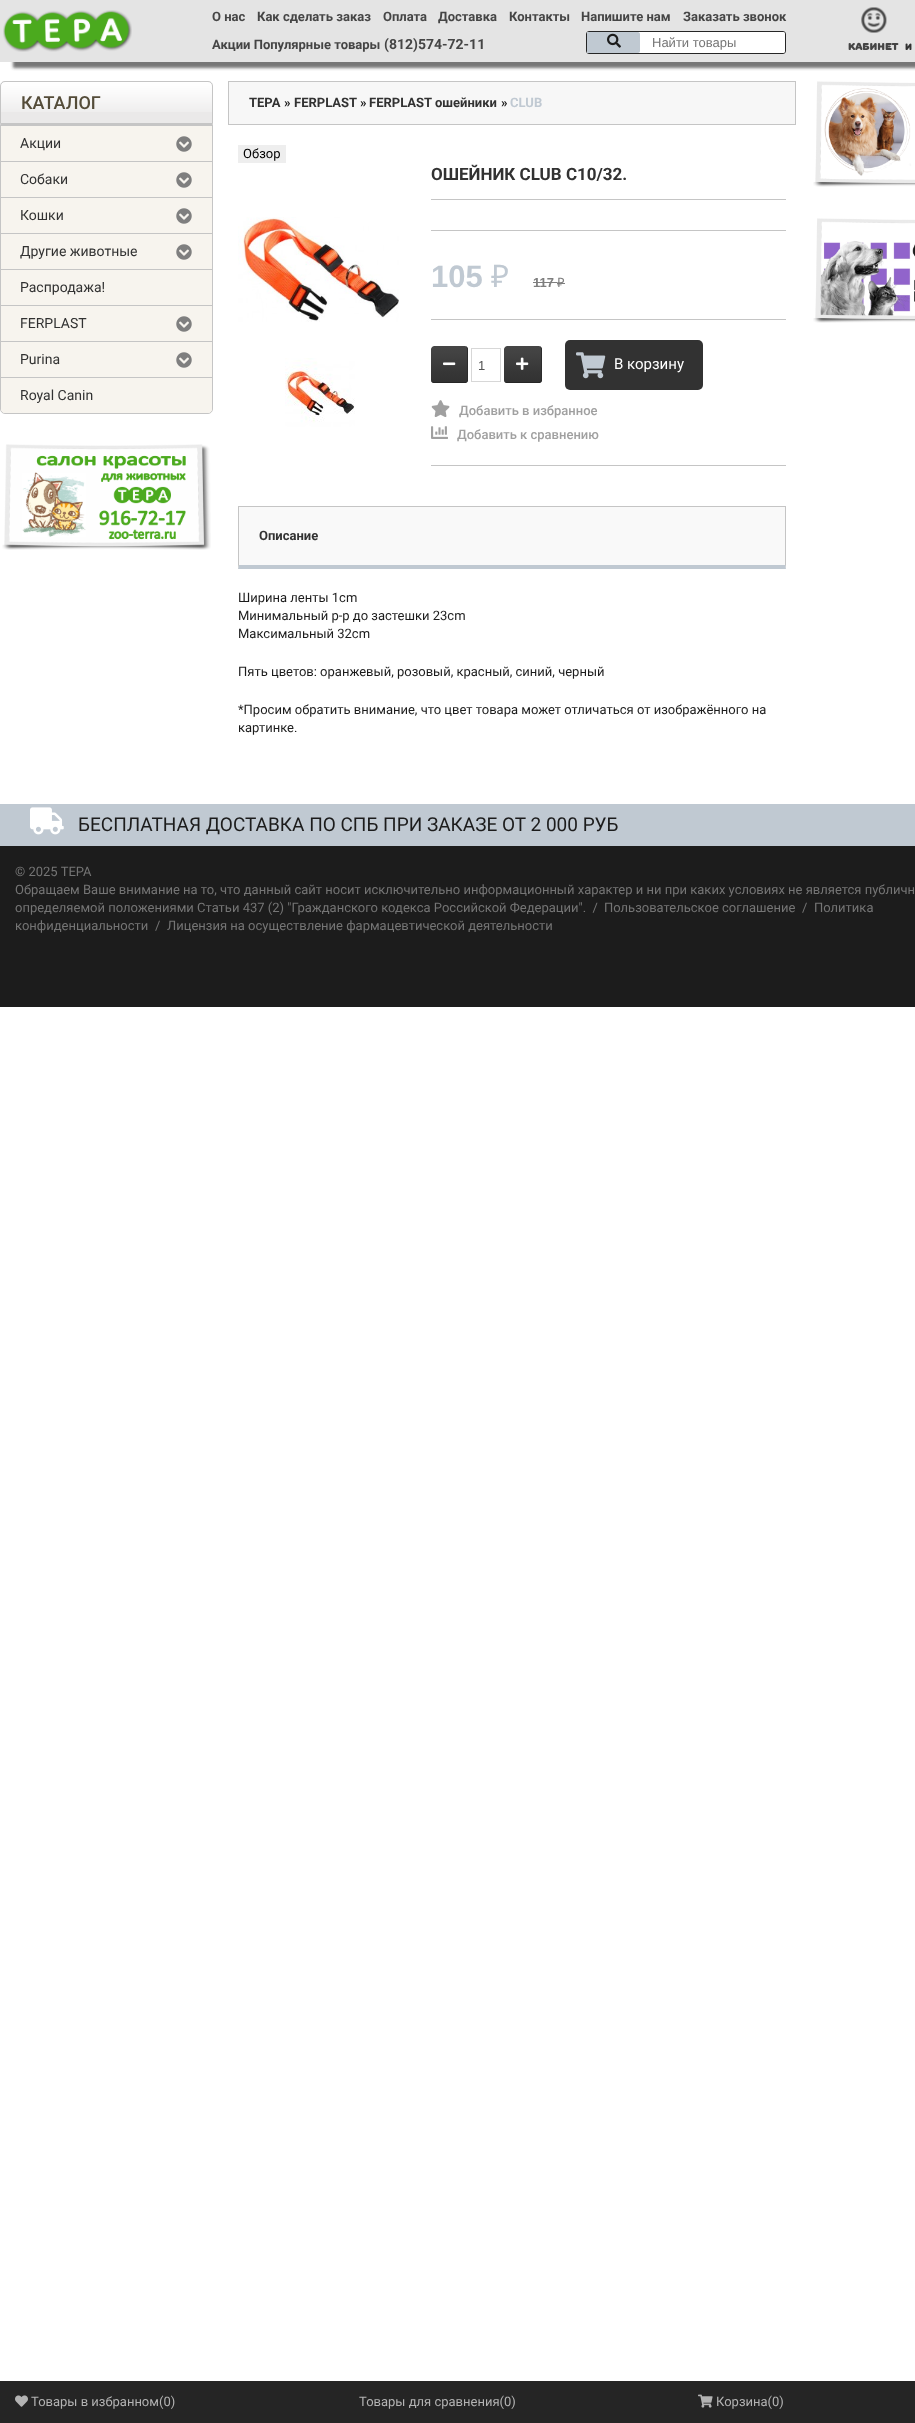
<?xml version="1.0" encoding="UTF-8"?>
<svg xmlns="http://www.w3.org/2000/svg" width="915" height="2423">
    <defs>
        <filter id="blur1" x="-50%" y="-200%" width="200%" height="500%"><feGaussianBlur stdDeviation="1.5"/></filter>
        <clipPath id="clip1"><rect x="431" y="346" width="37" height="37" rx="3"/></clipPath>
        <linearGradient id="g1" gradientUnits="userSpaceOnUse" x1="449" y1="346" x2="449" y2="382"><stop offset="0" stop-color="#454545"/><stop offset="0.18" stop-color="#434343"/><stop offset="0.73" stop-color="#363636"/><stop offset="1" stop-color="#323232"/></linearGradient>
        <linearGradient id="g2" gradientUnits="userSpaceOnUse" x1="449" y1="382" x2="449" y2="418"><stop offset="0" stop-color="#454545"/><stop offset="0.18" stop-color="#434343"/><stop offset="0.73" stop-color="#363636"/><stop offset="1" stop-color="#323232"/></linearGradient>
        <clipPath id="clip2"><rect x="504" y="346" width="38" height="37" rx="3"/></clipPath>
        <linearGradient id="g3" gradientUnits="userSpaceOnUse" x1="523" y1="346" x2="523" y2="382"><stop offset="0" stop-color="#454545"/><stop offset="0.18" stop-color="#434343"/><stop offset="0.73" stop-color="#363636"/><stop offset="1" stop-color="#323232"/></linearGradient>
        <linearGradient id="g4" gradientUnits="userSpaceOnUse" x1="523" y1="382" x2="523" y2="418"><stop offset="0" stop-color="#454545"/><stop offset="0.18" stop-color="#434343"/><stop offset="0.73" stop-color="#363636"/><stop offset="1" stop-color="#323232"/></linearGradient>
    </defs>
    <rect width="100%" height="100%" fill="#FFFFFF"/>
    <rect x="13" y="32" width="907" height="36" fill="#383838" fill-opacity="0.69" filter="url(#blur1)"/>
    <rect x="0" y="0" width="915" height="62" fill="#E4E4E4"/>
    <image x="3" y="10" width="129" height="42" href="img_01.png"/>
    <text x="212" y="21" font-family="Roboto" font-size="13" font-weight="700" fill="#454545">О нас</text>
    <text x="257" y="21" font-family="Roboto" font-size="13" font-weight="700" fill="#454545">Как сделать заказ</text>
    <text x="383" y="21" font-family="Roboto" font-size="13" font-weight="700" fill="#454545">Оплата</text>
    <text x="438" y="21" font-family="Roboto" font-size="13" font-weight="700" fill="#454545">Доставка</text>
    <text x="509" y="21" font-family="Roboto" font-size="13" font-weight="700" fill="#454545">Контакты</text>
    <text x="581" y="21" font-family="Roboto" font-size="13" font-weight="700" fill="#454545">Напишите нам</text>
    <text x="683" y="21" font-family="Roboto" font-size="13" font-weight="700" fill="#454545">Заказать звонок</text>
    <text x="212" y="49" font-family="Roboto" font-size="13" font-weight="700" fill="#454545">Акции Популярные товары</text>
    <text x="384" y="49" font-family="Roboto" font-size="14" font-weight="700" fill="#454545">(812)574-72-11</text>
    <rect x="586.5" y="31.5" width="199" height="22" rx="2.5" fill="none" stroke="#262626"/>
    <rect x="587" y="32" width="198" height="21" rx="2" fill="#FFFFFF"/>
    <path d="M 587 32 H 638 C 639 32 640 33 640 34 V 51 C 640 52 639 53 638 53 H 587 Z" fill="#C0C9D2"/>
    <image x="607" y="33" width="14" height="15" href="img_02.png"/>
    <text x="652" y="47" font-family="Liberation Sans" font-size="13" fill="#757575">Найти товары</text>
    <image x="861" y="7" width="26" height="26" href="img_03.png"/>
    <text x="848" y="50" font-family="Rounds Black" font-size="10" font-weight="900" fill="#454545">КАБИНЕТ</text>
    <text x="905" y="50" font-family="Rounds Black" font-size="9" font-weight="900" fill="#323232">И</text>
    <path d="M 5 81 H 208 C 211 81 213 83 213 86 V 124 H 0 V 86 C 0 83 2 81 5 81 Z" fill="#EAE9E9"/>
    <image x="0" y="82" width="213" height="30" href="img_04.png"/>
    <path d="M 5 81.5 H 208 C 210.5 81.5 212.5 83.5 212.5 86 V 123.5 H 0.5 V 86 C 0.5 83.5 2.5 81.5 5 81.5 Z" fill="none" stroke="#C5C5C5"/>
    <text x="21" y="109" font-family="Roboto" font-size="18" font-weight="500" fill="#544C39">КАТАЛОГ</text>
    <path d="M 0.5 124.5 H 212.5 V 409 C 212.5 411.5 210.5 413.5 208 413.5 H 5 C 2.5 413.5 0.5 411.5 0.5 409 Z" fill="#F7F4EE" stroke="#C5C5C5"/>
    <rect x="1" y="125" width="211" height="1" fill="#C5C5C5"/>
    <text x="20" y="148" font-family="Roboto" font-size="14" fill="#323232">Акции</text>
    <image x="176" y="136" width="16" height="16" href="img_05.png"/>
    <rect x="1" y="161" width="211" height="1" fill="#C5C5C5"/>
    <text x="20" y="184" font-family="Roboto" font-size="14" fill="#323232">Собаки</text>
    <image x="176" y="172" width="16" height="16" href="img_05.png"/>
    <rect x="1" y="197" width="211" height="1" fill="#C5C5C5"/>
    <text x="20" y="220" font-family="Roboto" font-size="14" fill="#323232">Кошки</text>
    <image x="176" y="208" width="16" height="16" href="img_05.png"/>
    <rect x="1" y="233" width="211" height="1" fill="#C5C5C5"/>
    <text x="20" y="256" font-family="Roboto" font-size="14" fill="#323232">Другие животные</text>
    <image x="176" y="244" width="16" height="16" href="img_05.png"/>
    <rect x="1" y="269" width="211" height="1" fill="#C5C5C5"/>
    <text x="20" y="292" font-family="Roboto" font-size="14" fill="#323232">Распродажа!</text>
    <rect x="1" y="305" width="211" height="1" fill="#C5C5C5"/>
    <text x="20" y="328" font-family="Roboto" font-size="14" fill="#323232">FERPLAST</text>
    <image x="176" y="316" width="16" height="16" href="img_05.png"/>
    <rect x="1" y="341" width="211" height="1" fill="#C5C5C5"/>
    <text x="20" y="364" font-family="Roboto" font-size="14" fill="#323232">Purina</text>
    <image x="176" y="352" width="16" height="16" href="img_05.png"/>
    <path d="M 1 377 H 212 V 409 C 212 411 210 413 208 413 H 5 C 3 413 1 411 1 409 Z" fill="#F7F4EE"/>
    <rect x="1" y="377" width="211" height="1" fill="#C5C5C5"/>
    <text x="20" y="400" font-family="Roboto" font-size="14" fill="#323232">Royal Canin</text>
    <image x="2" y="444" width="209" height="106" href="img_06.png"/>
    <rect x="228.5" y="81.5" width="567" height="43" fill="#F7F7F7" stroke="#C5C5C5"/>
    <text x="249" y="107" font-family="Roboto" font-size="13" font-weight="700" fill="#323232">ТЕРА</text>
    <text x="284" y="107" font-family="Roboto" font-size="13" font-weight="700" fill="#1C1C1C">»</text>
    <text x="294" y="107" font-family="Roboto" font-size="13" font-weight="700" fill="#323232">FERPLAST</text>
    <text x="360" y="107" font-family="Roboto" font-size="13" font-weight="700" fill="#1C1C1C">»</text>
    <text x="369" y="107" font-family="Roboto" font-size="13" font-weight="700" fill="#323232">FERPLAST ошейники</text>
    <text x="501" y="107" font-family="Roboto" font-size="13" font-weight="700" fill="#1C1C1C">»</text>
    <text x="510" y="107" font-family="Roboto" font-size="13" font-weight="700" fill="#C0C9D2">CLUB</text>
    <rect x="238" y="145" width="48" height="18" fill="#EEEEEE"/>
    <text x="243" y="158" font-family="Roboto" font-size="13" fill="#000000">Обзор</text>
    <image x="238" y="217" width="161" height="105" href="img_07.png"/>
    <image x="285" y="358" width="70" height="69" href="img_08.png"/>
    <rect x="431" y="199" width="355" height="1" fill="#C5C5C5"/>
    <text x="431" y="180" font-family="Roboto" font-size="17" font-weight="700" fill="#323232">ОШЕЙНИК CLUB C10/32.</text>
    <rect x="431" y="230" width="355" height="1" fill="#C5C5C5"/>
    <rect x="431" y="319" width="355" height="1" fill="#C5C5C5"/>
    <text x="431" y="287" font-family="Liberation Sans" font-size="31" font-weight="700" fill="#C0C9D2">105</text>
    <text x="491" y="287" font-family="Noto Sans" font-size="31" fill="#C0C9D2">₽</text>
    <text x="533" y="287" font-family="Liberation Sans" font-size="13" font-weight="700" fill="#7E7E7E">117</text>
    <rect x="533" y="282" width="24" height="1" fill="#7E7E7E"/>
    <text x="557" y="287" font-family="Noto Sans" font-size="13" fill="#7E7E7E">₽</text>
    <rect x="557" y="283" width="8" height="1" fill="#7E7E7E"/>
    <rect x="431" y="465" width="355" height="1" fill="#C5C5C5"/>
    <g clip-path="url(#clip1)">
        <path d="M 434 346 H 465 C 466.5 346 468 347.5 468 349 V 382 H 431 V 349 C 431 347.5 432.5 346 434 346 Z" fill="url(#g1)"/>
        <rect x="431" y="382" width="37" height="1" fill="url(#g2)"/>
    </g>
    <path d="M 468 349 C 468 347.5 466.5 346 465 346 C 466 346 467 347.5 467 349 V 380 C 467 380.5 467 381 466.5 381.5 L 467 382 C 467.5 381.5 468 381 468 380 Z" fill="#2C2C2C"/>
    <path d="M 434 383 H 465 C 466 383 466.5 382.5 467 382 L 466.5 381.5 C 466 382 465.5 382 465 382 H 434 C 432.5 382 431 381 431 380 C 431 381.5 432.5 383 434 383 Z" fill="#262626"/>
    <image x="443" y="362" width="13" height="4" href="img_09.png"/>
    <rect x="471.5" y="348.5" width="29" height="33" fill="none" stroke="#D7D7D7"/>
    <text x="478" y="370" font-family="Liberation Sans" font-size="13" fill="#555555">1</text>
    <g clip-path="url(#clip2)">
        <path d="M 507 346 H 539 C 540.5 346 542 347.5 542 349 V 382 H 504 V 349 C 504 347.5 505.5 346 507 346 Z" fill="url(#g3)"/>
        <rect x="504" y="382" width="38" height="1" fill="url(#g4)"/>
    </g>
    <path d="M 542 349 C 542 347.5 540.5 346 539 346 C 540 346 541 347.5 541 349 V 380 C 541 380.5 541 381 540.5 381.5 L 541 382 C 541.5 381.5 542 381 542 380 Z" fill="#2C2C2C"/>
    <path d="M 507 383 H 539 C 540 383 540.5 382.5 541 382 L 540.5 381.5 L 539 382 H 506.5 C 505.5 382 504.5 381.5 504 380.5 V 380 C 504 381.5 505.5 383 507 383 Z" fill="#262626"/>
    <image x="516" y="357" width="13" height="13" href="img_10.png"/>
    <rect x="565" y="340" width="138" height="50" rx="5" fill="#323232"/>
    <image x="576" y="352" width="30" height="27" href="img_11.png"/>
    <text x="614" y="369" font-family="Roboto" font-size="15" fill="#FFFFFF">В корзину</text>
    <image x="431" y="400" width="19" height="17" href="img_12.png"/>
    <text x="459" y="415" font-family="Roboto" font-size="13" font-weight="500" fill="#A0A0A0">Добавить в избранное</text>
    <image x="431" y="426" width="17" height="13" href="img_13.png"/>
    <text x="457" y="439" font-family="Roboto" font-size="13" font-weight="500" fill="#A0A0A0">Добавить к сравнению</text>
    <rect x="239" y="507" width="546" height="58" fill="#F9F9F9"/>
    <rect x="238" y="506" width="548" height="1" fill="#C5C5C5"/>
    <path d="M 786 506 V 569 L 785 565 V 507 Z" fill="#C5C5C5"/>
    <path d="M 786 569 H 238 L 239 565 H 785 Z" fill="#C0C9D2"/>
    <path d="M 238 569 V 506 L 239 507 V 565 Z" fill="#C5C5C5"/>
    <text x="259" y="540" font-family="Roboto" font-size="13" font-weight="700" fill="#323232">Описание</text>
    <text font-family="Roboto" font-size="13" fill="#1C1C1C">
        <tspan x="238" y="602">Ширина ленты 1cm</tspan>
        <tspan x="238" y="620">Минимальный р-р до застешки 23cm</tspan>
        <tspan x="238" y="638">Максимальный 32cm</tspan>
    </text>
    <text x="238" y="676" font-family="Roboto" font-size="13" fill="#1C1C1C">Пять цветов: оранжевый, розовый, красный, синий, черный</text>
    <text font-family="Roboto" font-size="13" fill="#1C1C1C">
        <tspan x="238" y="714">*Просим обратить внимание, что цвет товара может отличаться от изображённого на</tspan>
        <tspan x="238" y="732">картинке.</tspan>
    </text>
    <image x="813" y="81" width="102" height="106" href="img_14.png"/>
    <image x="813" y="218" width="102" height="105" href="img_15.png"/>
    <rect x="0" y="804" width="915" height="42" fill="#C0C9D2"/>
    <image x="30" y="807" width="34" height="28" href="img_16.png"/>
    <text x="78" y="831" font-family="Roboto" font-size="19" fill="#1C1C1C">БЕСПЛАТНАЯ ДОСТАВКА ПО СПБ ПРИ ЗАКАЗЕ ОТ 2 000 РУБ</text>
    <rect x="0" y="846" width="915" height="161" fill="#1C1C1C"/>
    <text font-family="Roboto" font-size="13" fill="#757575" xml:space="preserve"><tspan x="15" y="876">© 2025 ТЕРА</tspan><tspan x="15" y="894">Обращаем Ваше внимание на то, что данный сайт носит исключительно информационный характер и ни при каких условиях не является публичн</tspan><tspan x="15" y="912">определяемой положениями Статьи 437 (2) "Гражданского кодекса Российской Федерации".  /</tspan></text>
    <text x="604" y="912" font-family="Roboto" font-size="13" fill="#757575">Пользовательское соглашение</text>
    <text x="802" y="912" font-family="Roboto" font-size="13" fill="#757575">/</text>
    <text x="814" y="912" font-family="Roboto" font-size="13" fill="#757575">Политика</text>
    <text x="15" y="930" font-family="Roboto" font-size="13" fill="#757575">конфиденциальности</text>
    <text x="155" y="930" font-family="Roboto" font-size="13" fill="#757575">/</text>
    <text x="167" y="930" font-family="Roboto" font-size="13" fill="#757575">Лицензия на осуществление фармацевтической деятельности</text>
    <rect x="0" y="2381" width="915" height="42" fill="#252525"/>
    <image x="15" y="2395" width="13" height="12" href="img_17.png"/>
    <text x="31" y="2406" font-family="Roboto" font-size="13" fill="#B3B3B3">Товары в избранном(0)</text>
    <text x="359" y="2406" font-family="Roboto" font-size="13" fill="#B3B3B3">Товары для сравнения(0)</text>
    <image x="698" y="2394" width="15" height="14" href="img_18.png"/>
    <text x="716" y="2406" font-family="Roboto" font-size="13" fill="#B3B3B3">Корзина(0)</text>
</svg>
